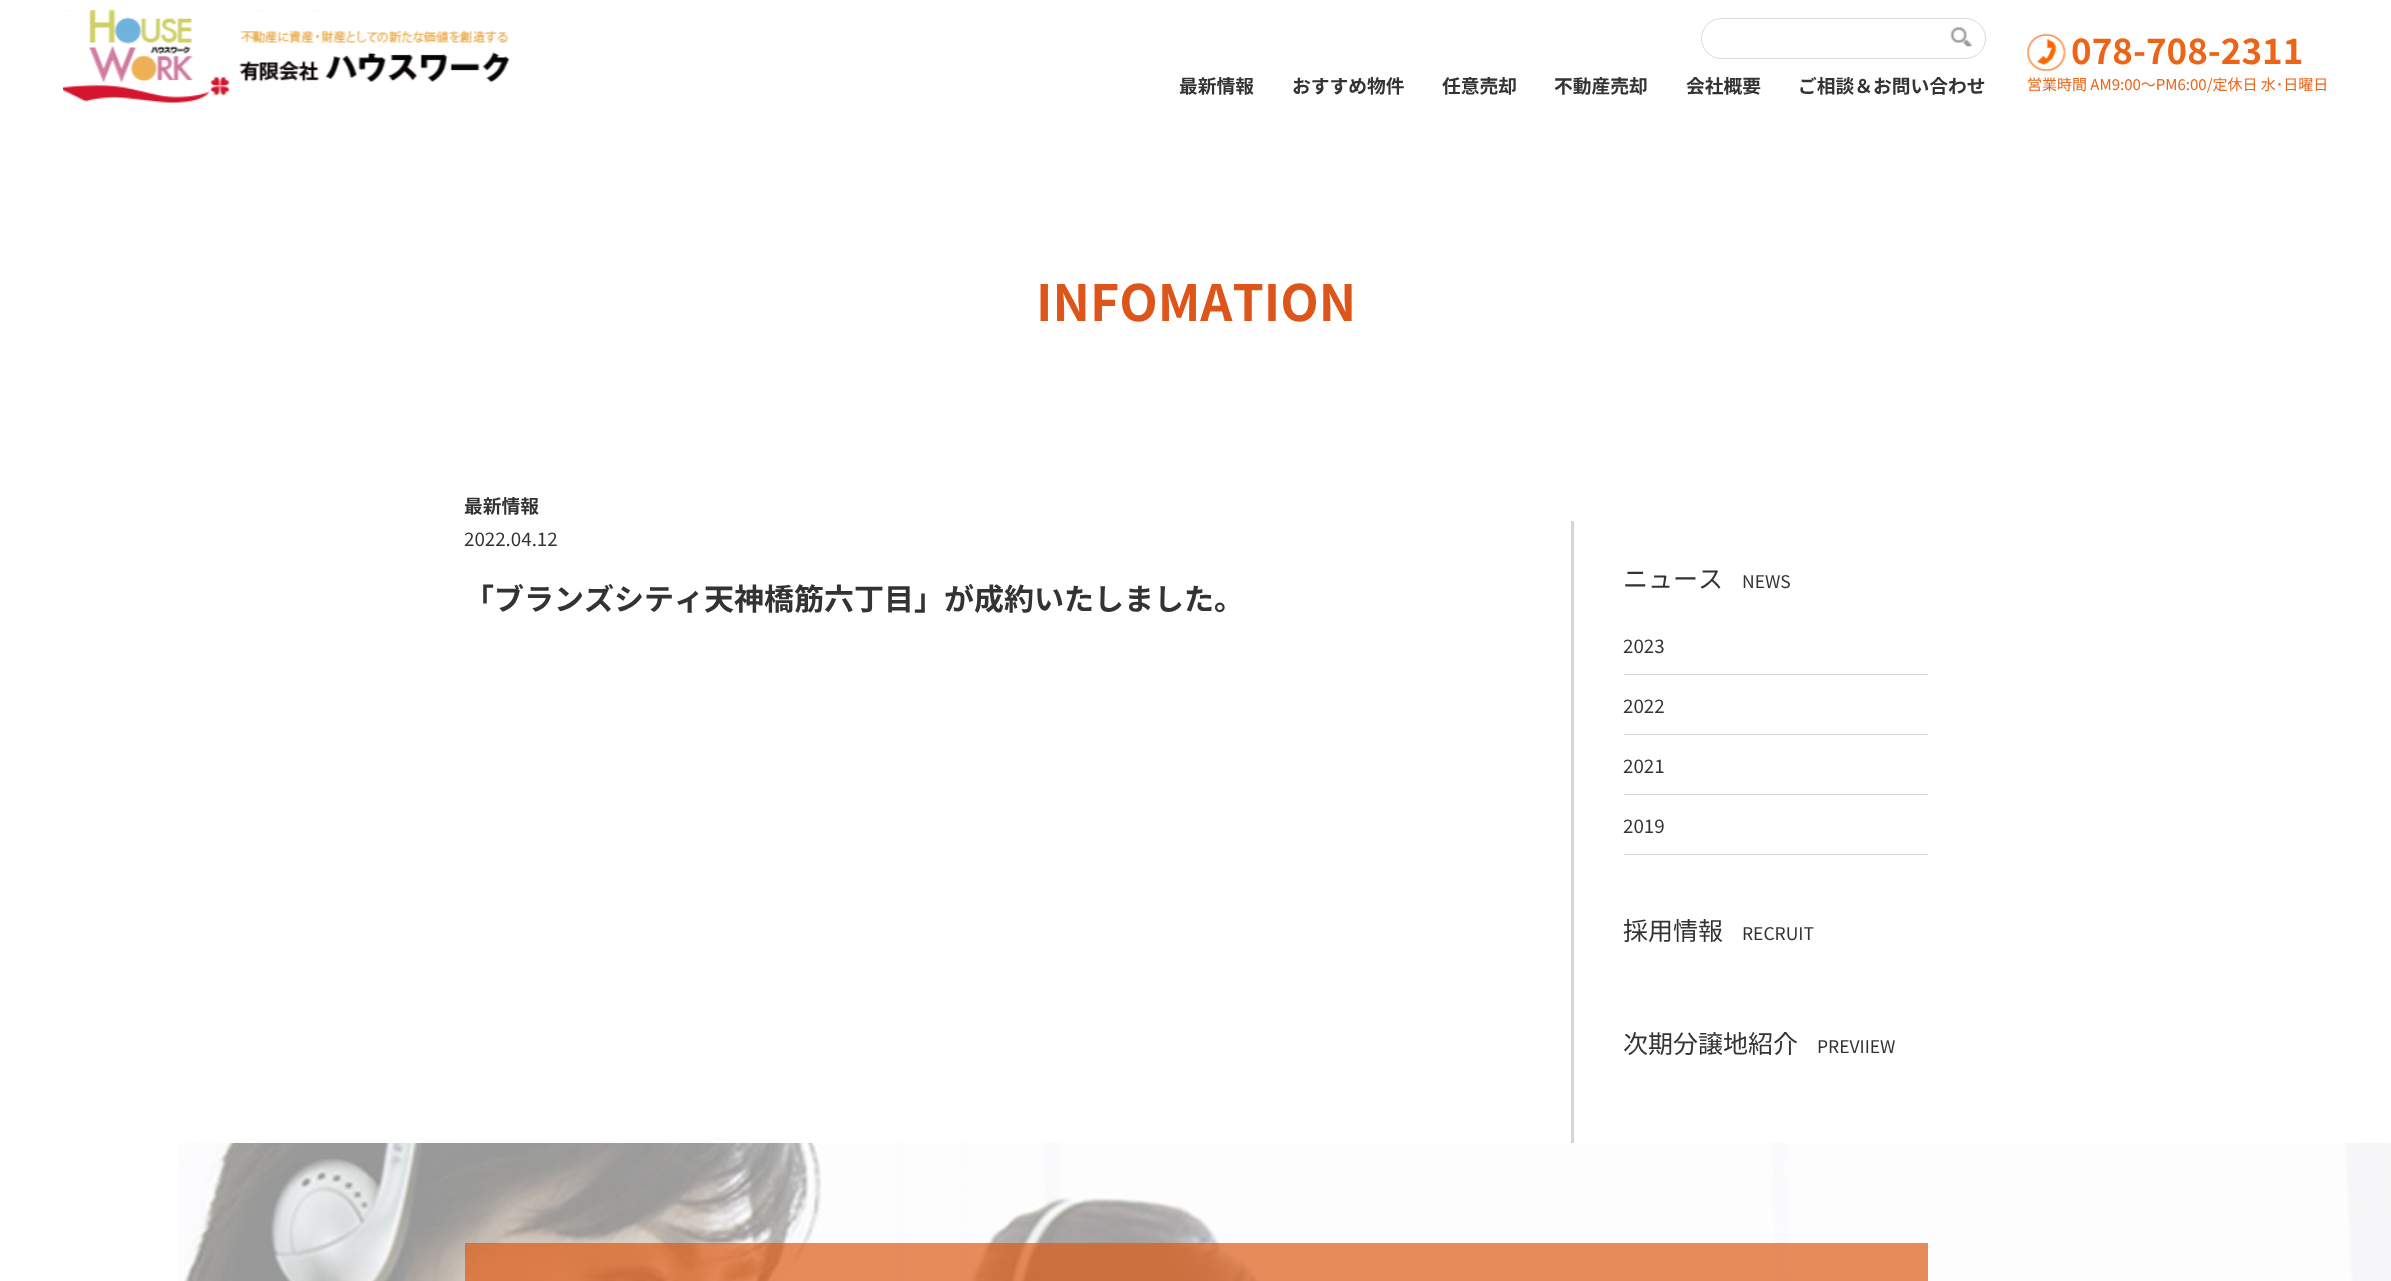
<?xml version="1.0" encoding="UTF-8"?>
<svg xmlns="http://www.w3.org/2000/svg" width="2391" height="1281">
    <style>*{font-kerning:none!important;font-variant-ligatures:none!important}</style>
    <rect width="100%" height="100%" fill="#FFFFFF"/>
    <image x="63" y="10" width="447" height="93" href="img_01.png"/>
    <rect x="1701.5" y="18.5" width="284" height="40" rx="20" fill="none" stroke="#D9D9D9"/>
    <image x="1950" y="27" width="22" height="20" href="img_02.png"/>
    <text x="1179" y="93" font-family="Noto Sans JP" font-size="18.75" font-weight="700" fill="#333333">最新情報</text>
    <text x="1292" y="93" font-family="Noto Sans JP" font-size="18.75" font-weight="700" fill="#333333">おすすめ物件</text>
    <text x="1442" y="93" font-family="Noto Sans JP" font-size="18.75" font-weight="700" fill="#333333">任意売却</text>
    <text x="1554" y="93" font-family="Noto Sans JP" font-size="18.75" font-weight="700" fill="#333333">不動産売却</text>
    <text x="1686" y="93" font-family="Noto Sans JP" font-size="18.75" font-weight="700" fill="#333333">会社概要</text>
    <text x="1798" y="93" font-family="Noto Sans JP" font-size="18.75" font-weight="700" fill="#333333">ご相談＆お問い合わせ</text>
    <image x="2027" y="33" width="39" height="39" href="img_03.png"/>
    <text x="2071" y="64" font-family="Noto Sans JP" font-size="35" font-weight="700" fill="#EC6516">078-708-2311</text>
    <text x="2027" y="90" font-family="Noto Sans JP" font-size="15" fill="#EC6516">営業時間 AM9:00～PM6:00/定休日 水･日曜日</text>
    <text x="1036" y="321" font-family="Noto Sans JP" font-size="50" font-weight="700" fill="#DE551A">INFOMATION</text>
    <text x="464" y="513" font-family="Noto Sans JP" font-size="18.75" font-weight="700" fill="#333333">最新情報</text>
    <text x="464" y="546" font-family="Noto Sans JP" font-size="18.75" fill="#333333">2022.04.12</text>
    <text x="464" y="610" font-family="Noto Sans JP" font-size="30" font-weight="700" fill="#333333">「ブランズシティ天神橋筋六丁目」が成約いたしました。</text>
    <rect x="1571" y="521" width="3" height="622" fill="#D5D5D5"/>
    <text x="1623" y="588" font-family="Noto Sans JP" font-size="25" fill="#333333">ニュース</text>
    <text x="1742" y="588" font-family="Noto Sans JP" font-size="17.5" fill="#333333">NEWS</text>
    <rect x="1624" y="674" width="304" height="1" fill="#D5D5D5"/>
    <text x="1623" y="653" font-family="Noto Sans JP" font-size="18.75" fill="#333333">2023</text>
    <rect x="1624" y="734" width="304" height="1" fill="#D5D5D5"/>
    <text x="1623" y="713" font-family="Noto Sans JP" font-size="18.75" fill="#333333">2022</text>
    <rect x="1624" y="794" width="304" height="1" fill="#D5D5D5"/>
    <text x="1623" y="773" font-family="Noto Sans JP" font-size="18.75" fill="#333333">2021</text>
    <rect x="1624" y="854" width="304" height="1" fill="#D5D5D5"/>
    <text x="1623" y="833" font-family="Noto Sans JP" font-size="18.75" fill="#333333">2019</text>
    <text x="1623" y="940" font-family="Noto Sans JP" font-size="25" fill="#333333">採用情報</text>
    <text x="1742" y="940" font-family="Noto Sans JP" font-size="17.5" fill="#333333">RECRUIT</text>
    <text x="1623" y="1053" font-family="Noto Sans JP" font-size="25" fill="#333333">次期分譲地紹介</text>
    <text x="1817" y="1053" font-family="Noto Sans JP" font-size="17.5" fill="#333333">PREVIIEW</text>
    <image x="179" y="1143" width="2212" height="138" href="img_04.png"/>
    <rect x="465" y="1243" width="1463" height="38" fill="#DC5A14" fill-opacity="0.7"/>
</svg>
